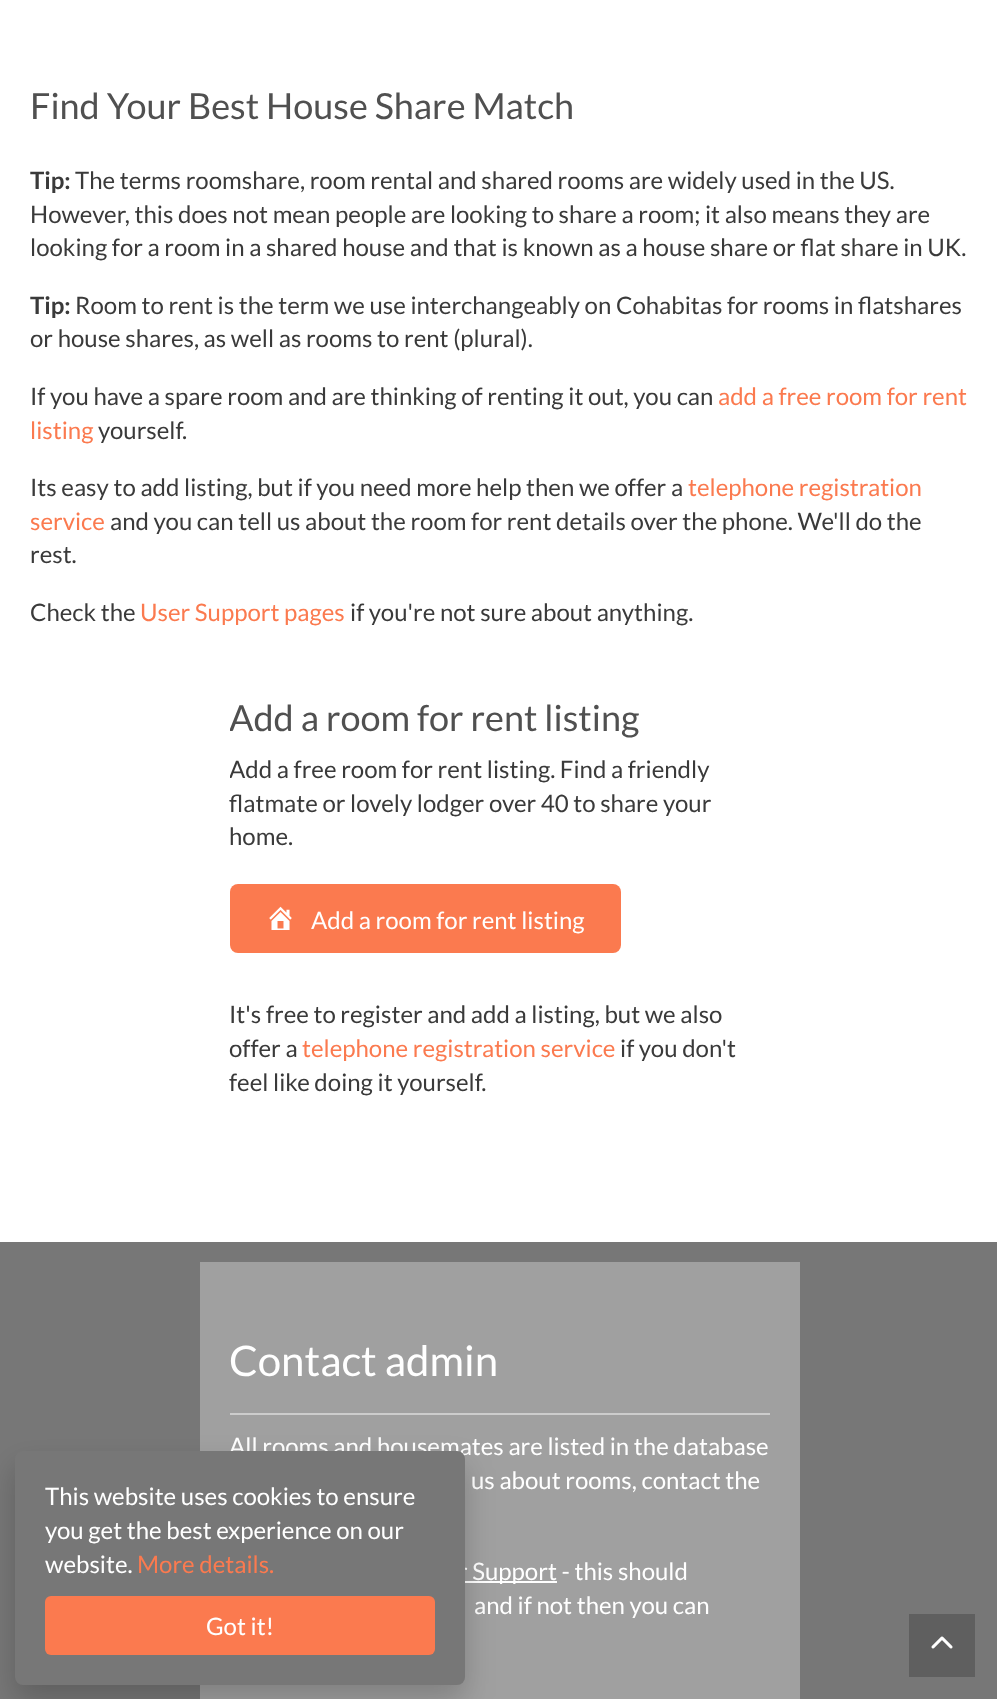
<?xml version="1.0" encoding="UTF-8"?>
<svg xmlns="http://www.w3.org/2000/svg" width="997" height="1699">
    <defs>
        <clipPath id="clip1"><rect x="230" y="698" width="540" height="255"/></clipPath>
        <filter id="blur1" x="-50%" y="-200%" width="200%" height="500%"><feGaussianBlur stdDeviation="15"/></filter>
    </defs>
    <rect width="100%" height="100%" fill="#FFFFFF"/>
    <text x="30" y="119" font-family="Lato" font-size="36" fill="#505050">Find Your Best House Share Match</text>
    <text x="30" y="189" font-family="Lato" font-size="24" font-weight="700" fill="#3A3A3A">Tip:</text>
    <text x="75" y="189" font-family="Lato" font-size="24" fill="#3A3A3A">The terms roomshare, room rental and shared rooms are widely used in the US.</text>
    <text font-family="Lato" font-size="24" fill="#3A3A3A">
        <tspan x="30" y="223">However, this does not mean people are looking to share a room; it also means they are</tspan>
        <tspan x="30" y="256">looking for a room in a shared house and that is known as a house share or flat share in UK.</tspan>
    </text>
    <text x="30" y="314" font-family="Lato" font-size="24" font-weight="700" fill="#3A3A3A">Tip:</text>
    <text x="75" y="314" font-family="Lato" font-size="24" fill="#3A3A3A">Room to rent is the term we use interchangeably on Cohabitas for rooms in flatshares</text>
    <text x="30" y="347" font-family="Lato" font-size="24" fill="#3A3A3A">or house shares, as well as rooms to rent (plural).</text>
    <text x="30" y="405" font-family="Lato" font-size="24" fill="#3A3A3A">If you have a spare room and are thinking of renting it out, you can</text>
    <text x="718" y="405" font-family="Lato" font-size="24" fill="#FB7A4F">add a free room for rent</text>
    <text x="30" y="439" font-family="Lato" font-size="24" fill="#FB7A4F">listing</text>
    <text x="98" y="439" font-family="Lato" font-size="24" fill="#3A3A3A">yourself.</text>
    <text x="30" y="496" font-family="Lato" font-size="24" fill="#3A3A3A">Its easy to add listing, but if you need more help then we offer a</text>
    <text x="688" y="496" font-family="Lato" font-size="24" fill="#FB7A4F">telephone registration</text>
    <text x="30" y="530" font-family="Lato" font-size="24" fill="#FB7A4F">service</text>
    <text x="110" y="530" font-family="Lato" font-size="24" fill="#3A3A3A">and you can tell us about the room for rent details over the phone. We'll do the</text>
    <text x="30" y="563" font-family="Lato" font-size="24" fill="#3A3A3A">rest.</text>
    <text x="30" y="621" font-family="Lato" font-size="24" fill="#3A3A3A">Check the</text>
    <text x="140" y="621" font-family="Lato" font-size="24" fill="#FB7A4F">User Support pages</text>
    <text x="350" y="621" font-family="Lato" font-size="24" fill="#3A3A3A">if you're not sure about anything.</text>
    <g clip-path="url(#clip1)">
        <text x="229" y="731" font-family="Lato" font-size="36" fill="#505050">Add a room for rent listing</text>
        <text x="229" y="778" font-family="Lato" font-size="24" fill="#3A3A3A">Add a free room for rent listing. Find a friendly</text>
    </g>
    <text font-family="Lato" font-size="24" fill="#3A3A3A">
        <tspan x="229" y="812">flatmate or lovely lodger over 40 to share your</tspan>
        <tspan x="229" y="845">home.</tspan>
    </text>
    <rect x="230" y="884" width="391" height="69" rx="8" fill="#FB7A4F"/>
    <image x="269" y="906" width="23" height="24" href="img_01.png"/>
    <text x="311" y="929" font-family="Lato" font-size="24" fill="#FFFFFF">Add a room for rent listing</text>
    <text font-family="Lato" font-size="24" fill="#3A3A3A">
        <tspan x="229" y="1023">It's free to register and add a listing, but we also</tspan>
        <tspan x="229" y="1057">offer a</tspan>
    </text>
    <text x="302" y="1057" font-family="Lato" font-size="24" fill="#FB7A4F">telephone registration service</text>
    <text x="620" y="1057" font-family="Lato" font-size="24" fill="#3A3A3A">if you don't</text>
    <text x="229" y="1091" font-family="Lato" font-size="24" fill="#3A3A3A">feel like doing it yourself.</text>
    <rect x="0" y="1242" width="997" height="457" fill="#777777"/>
    <rect x="200" y="1262" width="600" height="437" fill="#A0A0A0"/>
    <text x="229" y="1376" font-family="Lato" font-size="42" fill="#FFFFFF">Contact admin</text>
    <rect x="230" y="1413" width="540" height="2" fill="#CCCCCC"/>
    <text x="229" y="1455" font-family="Lato" font-size="24" fill="#FFFFFF">All rooms and housemates are listed in the database</text>
    <text x="471" y="1489" font-family="Lato" font-size="24" fill="#FFFFFF">us about rooms, contact the</text>
    <rect x="465" y="1581" width="92" height="2" fill="#FFFFFF"/>
    <text x="458" y="1580" font-family="Lato" font-size="24" fill="#FFFFFF">r Support - this should</text>
    <text x="474" y="1614" font-family="Lato" font-size="24" fill="#FFFFFF">and if not then you can</text>
    <rect x="15" y="1466" width="450" height="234" rx="8" fill="#000000" fill-opacity="0.2" filter="url(#blur1)"/>
    <rect x="15" y="1451" width="450" height="234" rx="8" fill="#777777"/>
    <text font-family="Lato" font-size="24" fill="#FFFFFF">
        <tspan x="45" y="1505">This website uses cookies to ensure</tspan>
        <tspan x="45" y="1539">you get the best experience on our</tspan>
        <tspan x="45" y="1573">website.</tspan>
    </text>
    <text x="137" y="1573" font-family="Lato" font-size="24" fill="#FB7A4F">More details.</text>
    <rect x="45" y="1596" width="390" height="59" rx="6" fill="#FB7A4F"/>
    <text x="206" y="1635" font-family="Lato" font-size="24" fill="#FFFFFF">Got it!</text>
    <rect x="909" y="1614" width="66" height="63" fill="#5F5F5F"/>
    <image x="931" y="1636" width="22" height="13" href="img_02.png"/>
</svg>
